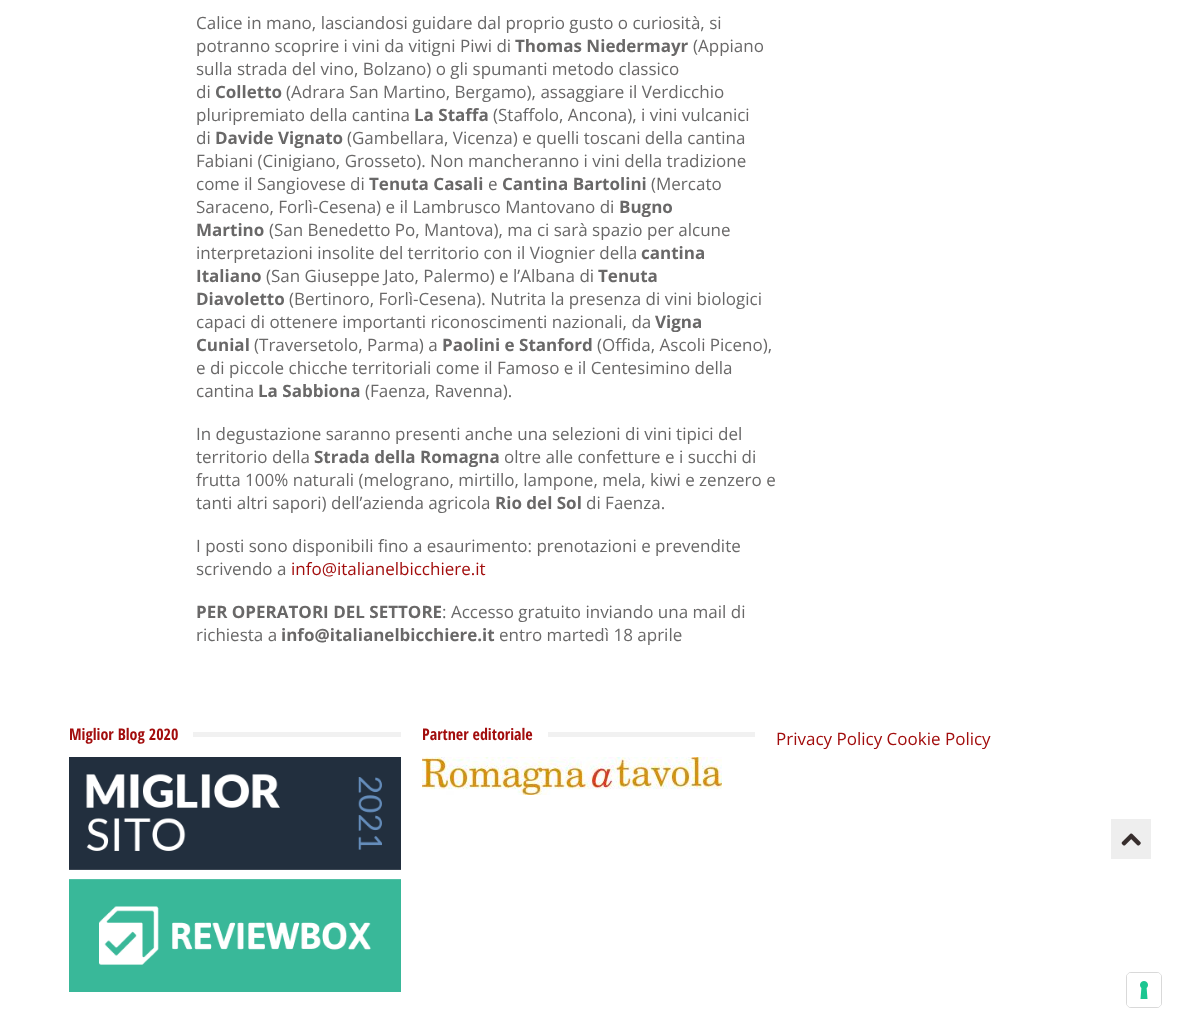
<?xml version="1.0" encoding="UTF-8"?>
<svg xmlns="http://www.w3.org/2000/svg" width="1177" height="1023">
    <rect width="100%" height="100%" fill="#FFFFFF"/>
    <text font-family="Open Sans" font-size="17" fill="#696868">
        <tspan x="196" y="29">Calice in mano, lasciandosi guidare dal proprio gusto o curiosità, si</tspan>
        <tspan x="196" y="52">potranno scoprire i vini da vitigni Piwi di</tspan>
    </text>
    <text x="515" y="52" font-family="Open Sans" font-size="17" font-weight="700" fill="#696868">Thomas Niedermayr</text>
    <text x="693" y="52" font-family="Open Sans" font-size="17" fill="#696868">(Appiano</text>
    <text font-family="Open Sans" font-size="17" fill="#696868">
        <tspan x="196" y="75">sulla strada del vino, Bolzano) o gli spumanti metodo classico</tspan>
        <tspan x="196" y="98">di</tspan>
    </text>
    <text x="215" y="98" font-family="Open Sans" font-size="17" font-weight="700" fill="#696868">Colletto</text>
    <text x="286" y="98" font-family="Open Sans" font-size="17" fill="#696868">(Adrara San Martino, Bergamo), assaggiare il Verdicchio</text>
    <text x="196" y="121" font-family="Open Sans" font-size="17" fill="#696868">pluripremiato della cantina</text>
    <text x="414" y="121" font-family="Open Sans" font-size="17" font-weight="700" fill="#696868">La Staffa</text>
    <text x="493" y="121" font-family="Open Sans" font-size="17" fill="#696868">(Staffolo, Ancona), i vini vulcanici</text>
    <text x="196" y="144" font-family="Open Sans" font-size="17" fill="#696868">di</text>
    <text x="215" y="144" font-family="Open Sans" font-size="17" font-weight="700" fill="#696868">Davide Vignato</text>
    <text x="347" y="144" font-family="Open Sans" font-size="17" fill="#696868">(Gambellara, Vicenza) e quelli toscani della cantina</text>
    <text font-family="Open Sans" font-size="17" fill="#696868">
        <tspan x="196" y="167">Fabiani (Cinigiano, Grosseto). Non mancheranno i vini della tradizione</tspan>
        <tspan x="196" y="190">come il Sangiovese di</tspan>
    </text>
    <text x="369" y="190" font-family="Open Sans" font-size="17" font-weight="700" fill="#696868">Tenuta Casali</text>
    <text x="488" y="190" font-family="Open Sans" font-size="17" fill="#696868">e</text>
    <text x="502" y="190" font-family="Open Sans" font-size="17" font-weight="700" fill="#696868">Cantina Bartolini</text>
    <text x="651" y="190" font-family="Open Sans" font-size="17" fill="#696868">(Mercato</text>
    <text x="196" y="213" font-family="Open Sans" font-size="17" fill="#696868">Saraceno, Forlì-Cesena) e il Lambrusco Mantovano di</text>
    <text x="619" y="213" font-family="Open Sans" font-size="17" font-weight="700" fill="#696868">Bugno</text>
    <text x="196" y="236" font-family="Open Sans" font-size="17" font-weight="700" fill="#696868">Martino</text>
    <text x="269" y="236" font-family="Open Sans" font-size="17" fill="#696868">(San Benedetto Po, Mantova), ma ci sarà spazio per alcune</text>
    <text x="196" y="259" font-family="Open Sans" font-size="17" fill="#696868">interpretazioni insolite del territorio con il Viognier della</text>
    <text x="641" y="259" font-family="Open Sans" font-size="17" font-weight="700" fill="#696868">cantina</text>
    <text x="196" y="282" font-family="Open Sans" font-size="17" font-weight="700" fill="#696868">Italiano</text>
    <text x="266" y="282" font-family="Open Sans" font-size="17" fill="#696868">(San Giuseppe Jato, Palermo) e l’Albana di</text>
    <text x="598" y="282" font-family="Open Sans" font-size="17" font-weight="700" fill="#696868">Tenuta</text>
    <text x="196" y="305" font-family="Open Sans" font-size="17" font-weight="700" fill="#696868">Diavoletto</text>
    <text x="289" y="305" font-family="Open Sans" font-size="17" fill="#696868">(Bertinoro, Forlì-Cesena). Nutrita la presenza di vini biologici</text>
    <text x="196" y="328" font-family="Open Sans" font-size="17" fill="#696868">capaci di ottenere importanti riconoscimenti nazionali, da</text>
    <text x="655" y="328" font-family="Open Sans" font-size="17" font-weight="700" fill="#696868">Vigna</text>
    <text x="196" y="351" font-family="Open Sans" font-size="17" font-weight="700" fill="#696868">Cunial</text>
    <text x="254" y="351" font-family="Open Sans" font-size="17" fill="#696868">(Traversetolo, Parma) a</text>
    <text x="442" y="351" font-family="Open Sans" font-size="17" font-weight="700" fill="#696868">Paolini e Stanford</text>
    <text x="597" y="351" font-family="Open Sans" font-size="17" fill="#696868">(Offida, Ascoli Piceno),</text>
    <text font-family="Open Sans" font-size="17" fill="#696868">
        <tspan x="196" y="374">e di piccole chicche territoriali come il Famoso e il Centesimino della</tspan>
        <tspan x="196" y="397">cantina</tspan>
    </text>
    <text x="258" y="397" font-family="Open Sans" font-size="17" font-weight="700" fill="#696868">La Sabbiona</text>
    <text x="365" y="397" font-family="Open Sans" font-size="17" fill="#696868">(Faenza, Ravenna).</text>
    <text font-family="Open Sans" font-size="17" fill="#696868">
        <tspan x="196" y="440">In degustazione saranno presenti anche una selezioni di vini tipici del</tspan>
        <tspan x="196" y="463">territorio della</tspan>
    </text>
    <text x="314" y="463" font-family="Open Sans" font-size="17" font-weight="700" fill="#696868">Strada della Romagna</text>
    <text x="504" y="463" font-family="Open Sans" font-size="17" fill="#696868">oltre alle confetture e i succhi di</text>
    <text font-family="Open Sans" font-size="17" fill="#696868">
        <tspan x="196" y="486">frutta 100% naturali (melograno, mirtillo, lampone, mela, kiwi e zenzero e</tspan>
        <tspan x="196" y="509">tanti altri sapori) dell’azienda agricola</tspan>
    </text>
    <text x="495" y="509" font-family="Open Sans" font-size="17" font-weight="700" fill="#696868">Rio del Sol</text>
    <text x="586" y="509" font-family="Open Sans" font-size="17" fill="#696868">di Faenza.</text>
    <text font-family="Open Sans" font-size="17" fill="#696868">
        <tspan x="196" y="552">I posti sono disponibili fino a esaurimento: prenotazioni e prevendite</tspan>
        <tspan x="196" y="575">scrivendo a</tspan>
    </text>
    <text x="291" y="575" font-family="Open Sans" font-size="17" fill="#A20D0D">info@italianelbicchiere.it</text>
    <text x="196" y="618" font-family="Open Sans" font-size="17" font-weight="700" fill="#696868">PER OPERATORI DEL SETTORE</text>
    <text x="442" y="618" font-family="Open Sans" font-size="17" fill="#696868">: Accesso gratuito inviando una mail di</text>
    <text x="196" y="641" font-family="Open Sans" font-size="17" fill="#696868">richiesta a</text>
    <text x="281" y="641" font-family="Open Sans" font-size="17" font-weight="700" fill="#696868">info@italianelbicchiere.it</text>
    <text x="499" y="641" font-family="Open Sans" font-size="17" fill="#696868">entro martedì 18 aprile</text>
    <rect x="193" y="732" width="208" height="5" fill="#F1F1F1"/>
    <text x="69" y="740" font-family="Open Sans Condensed" font-size="16" font-weight="700" fill="#A20D0D">Miglior Blog 2020</text>
    <image x="69" y="757" width="332" height="235" href="img_01.png"/>
    <rect x="548" y="732" width="207" height="5" fill="#F1F1F1"/>
    <text x="422" y="740" font-family="Open Sans Condensed" font-size="16" font-weight="700" fill="#A20D0D">Partner editoriale</text>
    <image x="422" y="757" width="300" height="38" href="img_02.png"/>
    <text x="776" y="745" font-family="Open Sans" font-size="17" fill="#A20D0D">Privacy Policy Cookie Policy</text>
    <rect x="1111" y="819" width="40" height="40" fill="#EEEEEE"/>
    <image x="1121" y="833" width="20" height="13" href="img_03.png"/>
    <rect x="1126.5" y="972.5" width="35" height="35" rx="4.5" fill="none" stroke="#000000" stroke-opacity="0.15"/>
    <rect x="1127" y="973" width="34" height="34" rx="4" fill="#FFFFFF"/>
    <image x="1140" y="981" width="8" height="18" href="img_04.png"/>
</svg>
